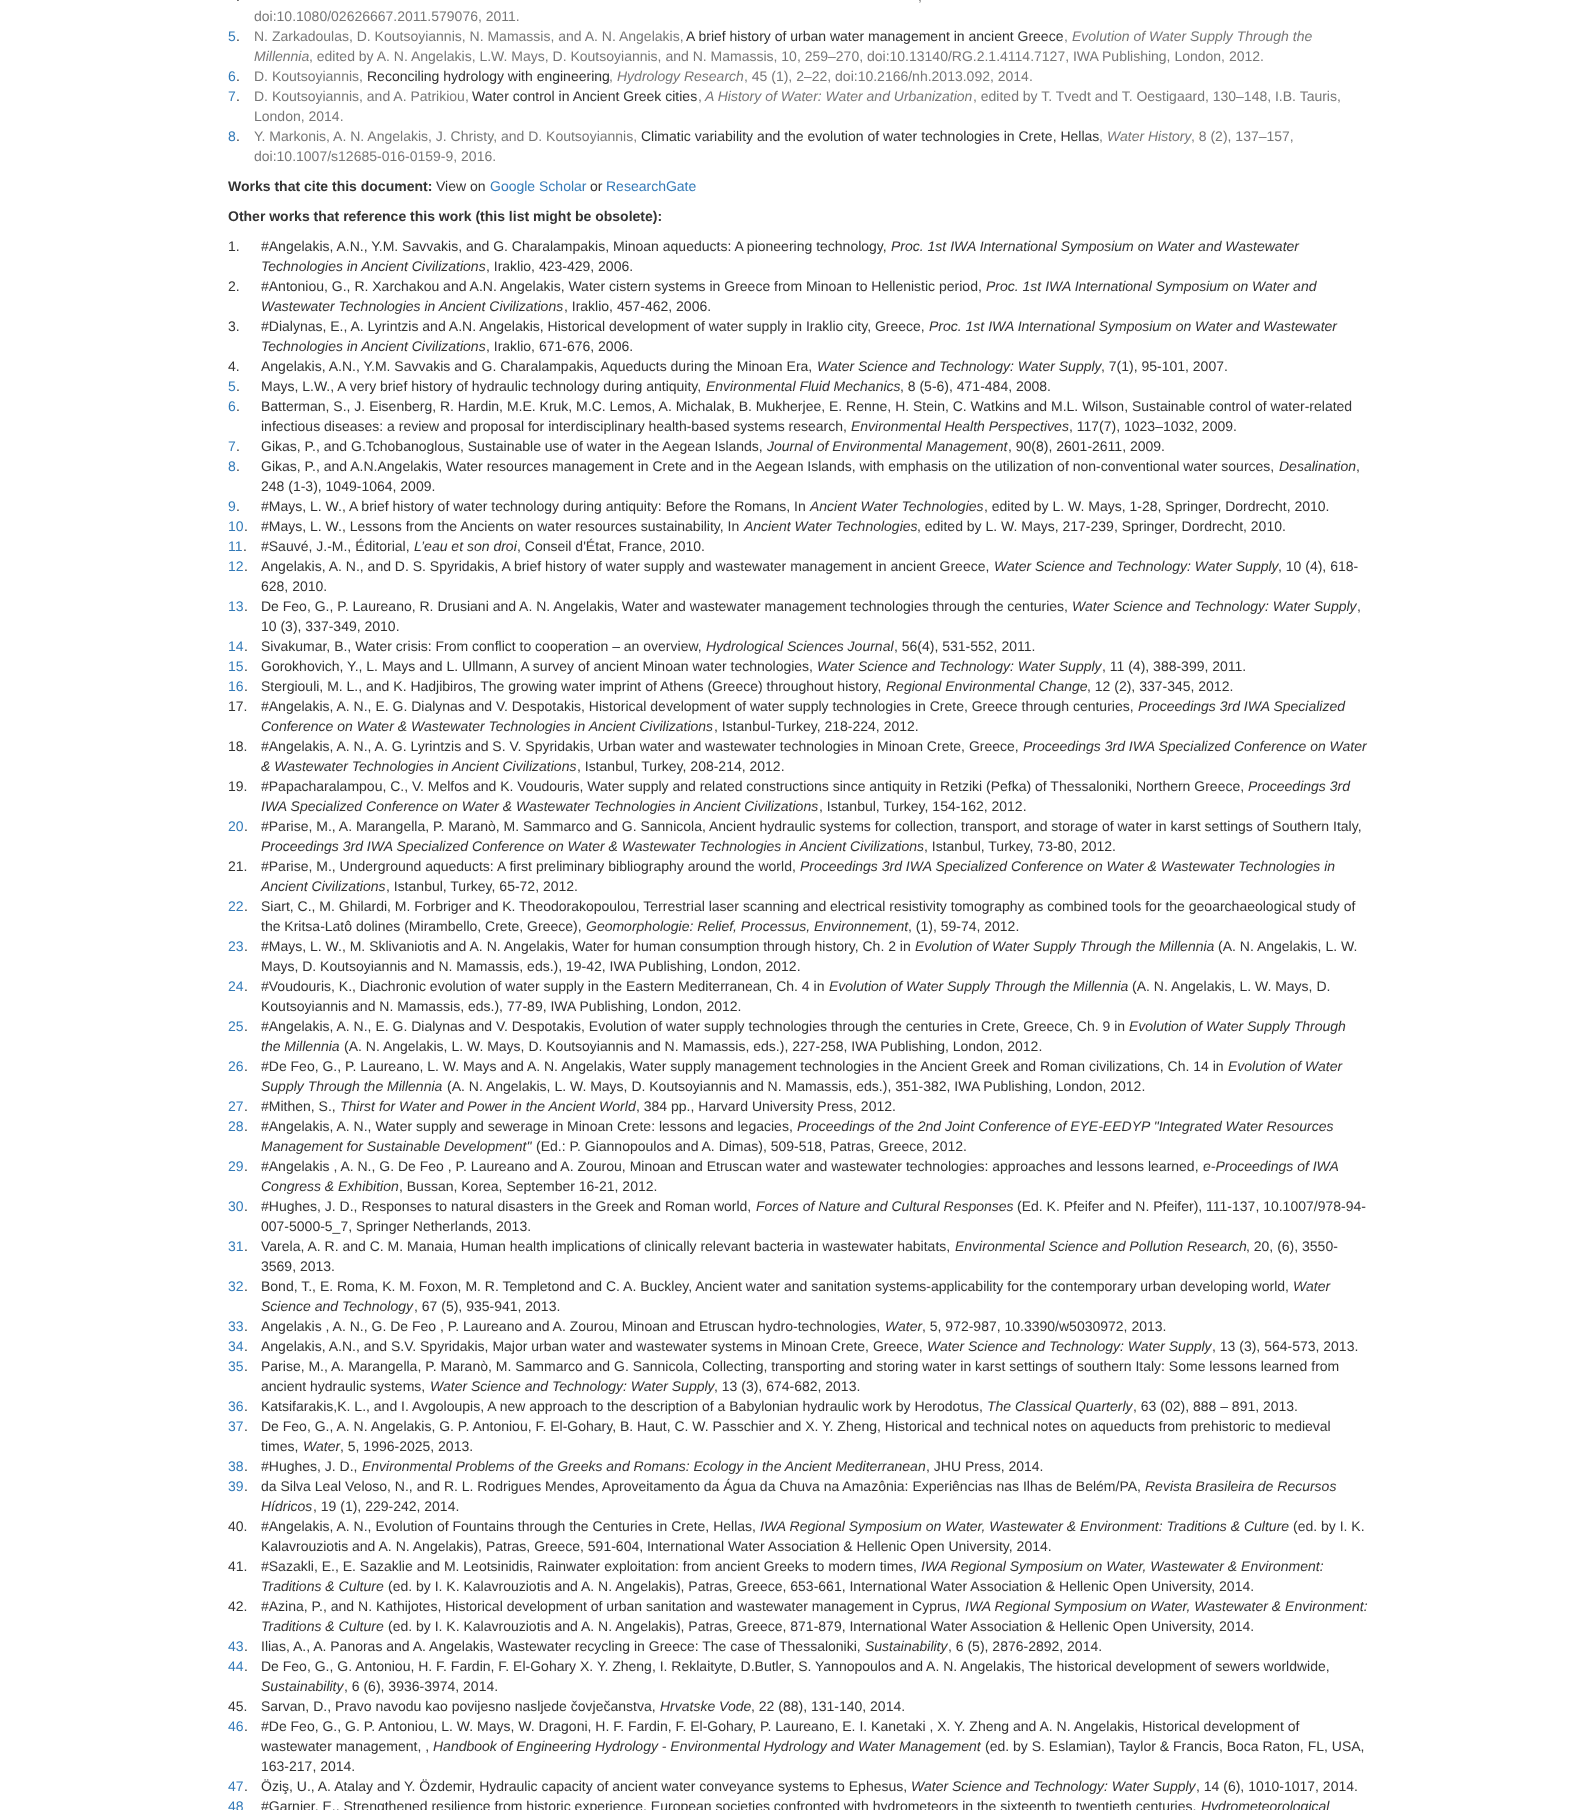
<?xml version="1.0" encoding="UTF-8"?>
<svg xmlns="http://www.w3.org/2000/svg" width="1596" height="1810">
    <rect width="100%" height="100%" fill="#FFFFFF"/>
    <text x="236" y="1" font-family="Liberation Sans" font-size="14" fill="#333333">.</text>
    <text x="918" y="1" font-family="Liberation Sans" font-size="14" fill="#777777">,</text>
    <text x="254" y="21" font-family="Liberation Sans" font-size="14" fill="#777777">doi:10.1080/02626667.2011.579076, 2011.</text>
    <text x="228" y="41" font-family="Liberation Sans" font-size="14" fill="#337AB7">5</text>
    <text x="236" y="41" font-family="Liberation Sans" font-size="14" fill="#333333">.</text>
    <text x="254" y="41" font-family="Liberation Sans" font-size="14" fill="#777777">N. Zarkadoulas, D. Koutsoyiannis, N. Mamassis, and A. N. Angelakis,</text>
    <text x="686" y="41" font-family="Liberation Sans" font-size="14" fill="#333333">A brief history of urban water management in ancient Greece</text>
    <text x="1064" y="41" font-family="Liberation Sans" font-size="14" fill="#777777">,</text>
    <text x="1072" y="41" font-family="Liberation Sans" font-size="14" font-style="italic" fill="#777777">Evolution of Water Supply Through the</text>
    <text x="254" y="61" font-family="Liberation Sans" font-size="14" font-style="italic" fill="#777777">Millennia</text>
    <text x="309" y="61" font-family="Liberation Sans" font-size="14" fill="#777777">, edited by A. N. Angelakis, L.W. Mays, D. Koutsoyiannis, and N. Mamassis, 10, 259–270, doi:10.13140/RG.2.1.4114.7127, IWA Publishing, London, 2012.</text>
    <text x="228" y="81" font-family="Liberation Sans" font-size="14" fill="#337AB7">6</text>
    <text x="236" y="81" font-family="Liberation Sans" font-size="14" fill="#333333">.</text>
    <text x="254" y="81" font-family="Liberation Sans" font-size="14" fill="#777777">D. Koutsoyiannis,</text>
    <text x="367" y="81" font-family="Liberation Sans" font-size="14" fill="#333333">Reconciling hydrology with engineering</text>
    <text x="609" y="81" font-family="Liberation Sans" font-size="14" fill="#777777">,</text>
    <text x="617" y="81" font-family="Liberation Sans" font-size="14" font-style="italic" fill="#777777">Hydrology Research</text>
    <text x="744" y="81" font-family="Liberation Sans" font-size="14" fill="#777777">, 45 (1), 2–22, doi:10.2166/nh.2013.092, 2014.</text>
    <text x="228" y="101" font-family="Liberation Sans" font-size="14" fill="#337AB7">7</text>
    <text x="236" y="101" font-family="Liberation Sans" font-size="14" fill="#333333">.</text>
    <text x="254" y="101" font-family="Liberation Sans" font-size="14" fill="#777777">D. Koutsoyiannis, and A. Patrikiou,</text>
    <text x="472" y="101" font-family="Liberation Sans" font-size="14" fill="#333333">Water control in Ancient Greek cities</text>
    <text x="698" y="101" font-family="Liberation Sans" font-size="14" fill="#777777">,</text>
    <text x="705" y="101" font-family="Liberation Sans" font-size="14" font-style="italic" fill="#777777">A History of Water: Water and Urbanization</text>
    <text x="973" y="101" font-family="Liberation Sans" font-size="14" fill="#777777">, edited by T. Tvedt and T. Oestigaard, 130–148, I.B. Tauris,</text>
    <text x="254" y="121" font-family="Liberation Sans" font-size="14" fill="#777777">London, 2014.</text>
    <text x="228" y="141" font-family="Liberation Sans" font-size="14" fill="#337AB7">8</text>
    <text x="236" y="141" font-family="Liberation Sans" font-size="14" fill="#333333">.</text>
    <text x="254" y="141" font-family="Liberation Sans" font-size="14" fill="#777777">Y. Markonis, A. N. Angelakis, J. Christy, and D. Koutsoyiannis,</text>
    <text x="641" y="141" font-family="Liberation Sans" font-size="14" fill="#333333">Climatic variability and the evolution of water technologies in Crete, Hellas</text>
    <text x="1099" y="141" font-family="Liberation Sans" font-size="14" fill="#777777">,</text>
    <text x="1107" y="141" font-family="Liberation Sans" font-size="14" font-style="italic" fill="#777777">Water History</text>
    <text x="1191" y="141" font-family="Liberation Sans" font-size="14" fill="#777777">, 8 (2), 137–157,</text>
    <text x="254" y="161" font-family="Liberation Sans" font-size="14" fill="#777777">doi:10.1007/s12685-016-0159-9, 2016.</text>
    <text x="228" y="191" font-family="Liberation Sans" font-size="14" font-weight="700" fill="#333333">Works that cite this document:</text>
    <text x="436" y="191" font-family="Liberation Sans" font-size="14" fill="#333333">View on</text>
    <text x="490" y="191" font-family="Liberation Sans" font-size="14" fill="#337AB7">Google Scholar</text>
    <text x="590" y="191" font-family="Liberation Sans" font-size="14" fill="#333333">or</text>
    <text x="606" y="191" font-family="Liberation Sans" font-size="14" fill="#337AB7">ResearchGate</text>
    <text x="228" y="221" font-family="Liberation Sans" font-size="14" font-weight="700" fill="#333333">Other works that reference this work (this list might be obsolete):</text>
    <text x="228" y="251" font-family="Liberation Sans" font-size="14" fill="#333333">1.</text>
    <text x="261" y="251" font-family="Liberation Sans" font-size="14" fill="#333333">#Angelakis, A.N., Y.M. Savvakis, and G. Charalampakis, Minoan aqueducts: A pioneering technology,</text>
    <text x="891" y="251" font-family="Liberation Sans" font-size="14" font-style="italic" fill="#333333">Proc. 1st IWA International Symposium on Water and Wastewater</text>
    <text x="261" y="271" font-family="Liberation Sans" font-size="14" font-style="italic" fill="#333333">Technologies in Ancient Civilizations</text>
    <text x="486" y="271" font-family="Liberation Sans" font-size="14" fill="#333333">, Iraklio, 423-429, 2006.</text>
    <text x="228" y="291" font-family="Liberation Sans" font-size="14" fill="#333333">2.</text>
    <text x="261" y="291" font-family="Liberation Sans" font-size="14" fill="#333333">#Antoniou, G., R. Xarchakou and A.N. Angelakis, Water cistern systems in Greece from Minoan to Hellenistic period,</text>
    <text x="986" y="291" font-family="Liberation Sans" font-size="14" font-style="italic" fill="#333333">Proc. 1st IWA International Symposium on Water and</text>
    <text x="261" y="311" font-family="Liberation Sans" font-size="14" font-style="italic" fill="#333333">Wastewater Technologies in Ancient Civilizations</text>
    <text x="564" y="311" font-family="Liberation Sans" font-size="14" fill="#333333">, Iraklio, 457-462, 2006.</text>
    <text x="228" y="331" font-family="Liberation Sans" font-size="14" fill="#333333">3.</text>
    <text x="261" y="331" font-family="Liberation Sans" font-size="14" fill="#333333">#Dialynas, E., A. Lyrintzis and A.N. Angelakis, Historical development of water supply in Iraklio city, Greece,</text>
    <text x="929" y="331" font-family="Liberation Sans" font-size="14" font-style="italic" fill="#333333">Proc. 1st IWA International Symposium on Water and Wastewater</text>
    <text x="261" y="351" font-family="Liberation Sans" font-size="14" font-style="italic" fill="#333333">Technologies in Ancient Civilizations</text>
    <text x="486" y="351" font-family="Liberation Sans" font-size="14" fill="#333333">, Iraklio, 671-676, 2006.</text>
    <text x="228" y="371" font-family="Liberation Sans" font-size="14" fill="#333333">4.</text>
    <text x="261" y="371" font-family="Liberation Sans" font-size="14" fill="#333333">Angelakis, A.N., Y.M. Savvakis and G. Charalampakis, Aqueducts during the Minoan Era,</text>
    <text x="817" y="371" font-family="Liberation Sans" font-size="14" font-style="italic" fill="#333333">Water Science and Technology: Water Supply</text>
    <text x="1101" y="371" font-family="Liberation Sans" font-size="14" fill="#333333">, 7(1), 95-101, 2007.</text>
    <text x="228" y="391" font-family="Liberation Sans" font-size="14" fill="#337AB7">5</text>
    <text x="236" y="391" font-family="Liberation Sans" font-size="14" fill="#333333">.</text>
    <text x="261" y="391" font-family="Liberation Sans" font-size="14" fill="#333333">Mays, L.W., A very brief history of hydraulic technology during antiquity,</text>
    <text x="706" y="391" font-family="Liberation Sans" font-size="14" font-style="italic" fill="#333333">Environmental Fluid Mechanics</text>
    <text x="900" y="391" font-family="Liberation Sans" font-size="14" fill="#333333">, 8 (5-6), 471-484, 2008.</text>
    <text x="228" y="411" font-family="Liberation Sans" font-size="14" fill="#337AB7">6</text>
    <text x="236" y="411" font-family="Liberation Sans" font-size="14" fill="#333333">.</text>
    <text font-family="Liberation Sans" font-size="14" fill="#333333">
        <tspan x="261" y="411">Batterman, S., J. Eisenberg, R. Hardin, M.E. Kruk, M.C. Lemos, A. Michalak, B. Mukherjee, E. Renne, H. Stein, C. Watkins and M.L. Wilson, Sustainable control of water-related</tspan>
        <tspan x="261" y="431">infectious diseases: a review and proposal for interdisciplinary health-based systems research,</tspan>
    </text>
    <text x="851" y="431" font-family="Liberation Sans" font-size="14" font-style="italic" fill="#333333">Environmental Health Perspectives</text>
    <text x="1069" y="431" font-family="Liberation Sans" font-size="14" fill="#333333">, 117(7), 1023–1032, 2009.</text>
    <text x="228" y="451" font-family="Liberation Sans" font-size="14" fill="#337AB7">7</text>
    <text x="236" y="451" font-family="Liberation Sans" font-size="14" fill="#333333">.</text>
    <text x="261" y="451" font-family="Liberation Sans" font-size="14" fill="#333333">Gikas, P., and G.Tchobanoglous, Sustainable use of water in the Aegean Islands,</text>
    <text x="767" y="451" font-family="Liberation Sans" font-size="14" font-style="italic" fill="#333333">Journal of Environmental Management</text>
    <text x="1008" y="451" font-family="Liberation Sans" font-size="14" fill="#333333">, 90(8), 2601-2611, 2009.</text>
    <text x="228" y="471" font-family="Liberation Sans" font-size="14" fill="#337AB7">8</text>
    <text x="236" y="471" font-family="Liberation Sans" font-size="14" fill="#333333">.</text>
    <text x="261" y="471" font-family="Liberation Sans" font-size="14" fill="#333333">Gikas, P., and A.N.Angelakis, Water resources management in Crete and in the Aegean Islands, with emphasis on the utilization of non-conventional water sources,</text>
    <text x="1279" y="471" font-family="Liberation Sans" font-size="14" font-style="italic" fill="#333333">Desalination</text>
    <text x="1356" y="471" font-family="Liberation Sans" font-size="14" fill="#333333">,</text>
    <text x="261" y="491" font-family="Liberation Sans" font-size="14" fill="#333333">248 (1-3), 1049-1064, 2009.</text>
    <text x="228" y="511" font-family="Liberation Sans" font-size="14" fill="#337AB7">9</text>
    <text x="236" y="511" font-family="Liberation Sans" font-size="14" fill="#333333">.</text>
    <text x="261" y="511" font-family="Liberation Sans" font-size="14" fill="#333333">#Mays, L. W., A brief history of water technology during antiquity: Before the Romans, In</text>
    <text x="810" y="511" font-family="Liberation Sans" font-size="14" font-style="italic" fill="#333333">Ancient Water Technologies</text>
    <text x="984" y="511" font-family="Liberation Sans" font-size="14" fill="#333333">, edited by L. W. Mays, 1-28, Springer, Dordrecht, 2010.</text>
    <text x="228" y="531" font-family="Liberation Sans" font-size="14" fill="#337AB7">10</text>
    <text x="244" y="531" font-family="Liberation Sans" font-size="14" fill="#333333">.</text>
    <text x="261" y="531" font-family="Liberation Sans" font-size="14" fill="#333333">#Mays, L. W., Lessons from the Ancients on water resources sustainability, In</text>
    <text x="744" y="531" font-family="Liberation Sans" font-size="14" font-style="italic" fill="#333333">Ancient Water Technologies</text>
    <text x="917" y="531" font-family="Liberation Sans" font-size="14" fill="#333333">, edited by L. W. Mays, 217-239, Springer, Dordrecht, 2010.</text>
    <text x="228" y="551" font-family="Liberation Sans" font-size="14" fill="#337AB7">11</text>
    <text x="243" y="551" font-family="Liberation Sans" font-size="14" fill="#333333">.</text>
    <text x="261" y="551" font-family="Liberation Sans" font-size="14" fill="#333333">#Sauvé, J.-M., Éditorial,</text>
    <text x="414" y="551" font-family="Liberation Sans" font-size="14" font-style="italic" fill="#333333">L’eau et son droi</text>
    <text x="517" y="551" font-family="Liberation Sans" font-size="14" fill="#333333">, Conseil d'État, France, 2010.</text>
    <text x="228" y="571" font-family="Liberation Sans" font-size="14" fill="#337AB7">12</text>
    <text x="244" y="571" font-family="Liberation Sans" font-size="14" fill="#333333">.</text>
    <text x="261" y="571" font-family="Liberation Sans" font-size="14" fill="#333333">Angelakis, A. N., and D. S. Spyridakis, A brief history of water supply and wastewater management in ancient Greece,</text>
    <text x="994" y="571" font-family="Liberation Sans" font-size="14" font-style="italic" fill="#333333">Water Science and Technology: Water Supply</text>
    <text x="1278" y="571" font-family="Liberation Sans" font-size="14" fill="#333333">, 10 (4), 618-</text>
    <text x="261" y="591" font-family="Liberation Sans" font-size="14" fill="#333333">628, 2010.</text>
    <text x="228" y="611" font-family="Liberation Sans" font-size="14" fill="#337AB7">13</text>
    <text x="244" y="611" font-family="Liberation Sans" font-size="14" fill="#333333">.</text>
    <text x="261" y="611" font-family="Liberation Sans" font-size="14" fill="#333333">De Feo, G., P. Laureano, R. Drusiani and A. N. Angelakis, Water and wastewater management technologies through the centuries,</text>
    <text x="1072" y="611" font-family="Liberation Sans" font-size="14" font-style="italic" fill="#333333">Water Science and Technology: Water Supply</text>
    <text x="1357" y="611" font-family="Liberation Sans" font-size="14" fill="#333333">,</text>
    <text x="261" y="631" font-family="Liberation Sans" font-size="14" fill="#333333">10 (3), 337-349, 2010.</text>
    <text x="228" y="651" font-family="Liberation Sans" font-size="14" fill="#337AB7">14</text>
    <text x="244" y="651" font-family="Liberation Sans" font-size="14" fill="#333333">.</text>
    <text x="261" y="651" font-family="Liberation Sans" font-size="14" fill="#333333">Sivakumar, B., Water crisis: From conflict to cooperation – an overview,</text>
    <text x="706" y="651" font-family="Liberation Sans" font-size="14" font-style="italic" fill="#333333">Hydrological Sciences Journal</text>
    <text x="894" y="651" font-family="Liberation Sans" font-size="14" fill="#333333">, 56(4), 531-552, 2011.</text>
    <text x="228" y="671" font-family="Liberation Sans" font-size="14" fill="#337AB7">15</text>
    <text x="244" y="671" font-family="Liberation Sans" font-size="14" fill="#333333">.</text>
    <text x="261" y="671" font-family="Liberation Sans" font-size="14" fill="#333333">Gorokhovich, Y., L. Mays and L. Ullmann, A survey of ancient Minoan water technologies,</text>
    <text x="817" y="671" font-family="Liberation Sans" font-size="14" font-style="italic" fill="#333333">Water Science and Technology: Water Supply</text>
    <text x="1102" y="671" font-family="Liberation Sans" font-size="14" fill="#333333">, 11 (4), 388-399, 2011.</text>
    <text x="228" y="691" font-family="Liberation Sans" font-size="14" fill="#337AB7">16</text>
    <text x="244" y="691" font-family="Liberation Sans" font-size="14" fill="#333333">.</text>
    <text x="261" y="691" font-family="Liberation Sans" font-size="14" fill="#333333">Stergiouli, M. L., and K. Hadjibiros, The growing water imprint of Athens (Greece) throughout history,</text>
    <text x="886" y="691" font-family="Liberation Sans" font-size="14" font-style="italic" fill="#333333">Regional Environmental Change</text>
    <text x="1087" y="691" font-family="Liberation Sans" font-size="14" fill="#333333">, 12 (2), 337-345, 2012.</text>
    <text x="228" y="711" font-family="Liberation Sans" font-size="14" fill="#333333">17.</text>
    <text x="261" y="711" font-family="Liberation Sans" font-size="14" fill="#333333">#Angelakis, A. N., E. G. Dialynas and V. Despotakis, Historical development of water supply technologies in Crete, Greece through centuries,</text>
    <text x="1138" y="711" font-family="Liberation Sans" font-size="14" font-style="italic" fill="#333333">Proceedings 3rd IWA Specialized</text>
    <text x="261" y="731" font-family="Liberation Sans" font-size="14" font-style="italic" fill="#333333">Conference on Water &amp; Wastewater Technologies in Ancient Civilizations</text>
    <text x="714" y="731" font-family="Liberation Sans" font-size="14" fill="#333333">, Istanbul-Turkey, 218-224, 2012.</text>
    <text x="228" y="751" font-family="Liberation Sans" font-size="14" fill="#333333">18.</text>
    <text x="261" y="751" font-family="Liberation Sans" font-size="14" fill="#333333">#Angelakis, A. N., A. G. Lyrintzis and S. V. Spyridakis, Urban water and wastewater technologies in Minoan Crete, Greece,</text>
    <text x="1023" y="751" font-family="Liberation Sans" font-size="14" font-style="italic" fill="#333333">Proceedings 3rd IWA Specialized Conference on Water</text>
    <text x="261" y="771" font-family="Liberation Sans" font-size="14" font-style="italic" fill="#333333">&amp; Wastewater Technologies in Ancient Civilizations</text>
    <text x="577" y="771" font-family="Liberation Sans" font-size="14" fill="#333333">, Istanbul, Turkey, 208-214, 2012.</text>
    <text x="228" y="791" font-family="Liberation Sans" font-size="14" fill="#333333">19.</text>
    <text x="261" y="791" font-family="Liberation Sans" font-size="14" fill="#333333">#Papacharalampou, C., V. Melfos and K. Voudouris, Water supply and related constructions since antiquity in Retziki (Pefka) of Thessaloniki, Northern Greece,</text>
    <text x="1248" y="791" font-family="Liberation Sans" font-size="14" font-style="italic" fill="#333333">Proceedings 3rd</text>
    <text x="261" y="811" font-family="Liberation Sans" font-size="14" font-style="italic" fill="#333333">IWA Specialized Conference on Water &amp; Wastewater Technologies in Ancient Civilizations</text>
    <text x="819" y="811" font-family="Liberation Sans" font-size="14" fill="#333333">, Istanbul, Turkey, 154-162, 2012.</text>
    <text x="228" y="831" font-family="Liberation Sans" font-size="14" fill="#337AB7">20</text>
    <text x="244" y="831" font-family="Liberation Sans" font-size="14" fill="#333333">.</text>
    <text x="261" y="831" font-family="Liberation Sans" font-size="14" fill="#333333">#Parise, M., A. Marangella, P. Maranò, M. Sammarco and G. Sannicola, Ancient hydraulic systems for collection, transport, and storage of water in karst settings of Southern Italy,</text>
    <text x="261" y="851" font-family="Liberation Sans" font-size="14" font-style="italic" fill="#333333">Proceedings 3rd IWA Specialized Conference on Water &amp; Wastewater Technologies in Ancient Civilizations</text>
    <text x="924" y="851" font-family="Liberation Sans" font-size="14" fill="#333333">, Istanbul, Turkey, 73-80, 2012.</text>
    <text x="228" y="871" font-family="Liberation Sans" font-size="14" fill="#333333">21.</text>
    <text x="261" y="871" font-family="Liberation Sans" font-size="14" fill="#333333">#Parise, M., Underground aqueducts:</text>
    <text x="497" y="871" font-family="Liberation Sans" font-size="14" fill="#333333">A first preliminary bibliography around the world,</text>
    <text x="800" y="871" font-family="Liberation Sans" font-size="14" font-style="italic" fill="#333333">Proceedings 3rd IWA Specialized Conference on Water &amp; Wastewater Technologies in</text>
    <text x="261" y="891" font-family="Liberation Sans" font-size="14" font-style="italic" fill="#333333">Ancient Civilizations</text>
    <text x="386" y="891" font-family="Liberation Sans" font-size="14" fill="#333333">, Istanbul, Turkey, 65-72, 2012.</text>
    <text x="228" y="911" font-family="Liberation Sans" font-size="14" fill="#337AB7">22</text>
    <text x="244" y="911" font-family="Liberation Sans" font-size="14" fill="#333333">.</text>
    <text font-family="Liberation Sans" font-size="14" fill="#333333">
        <tspan x="261" y="911">Siart, C., M. Ghilardi, M. Forbriger and K. Theodorakopoulou, Terrestrial laser scanning and electrical resistivity tomography as combined tools for the geoarchaeological study of</tspan>
        <tspan x="261" y="931">the Kritsa-Latô dolines (Mirambello, Crete, Greece),</tspan>
    </text>
    <text x="586" y="931" font-family="Liberation Sans" font-size="14" font-style="italic" fill="#333333">Geomorphologie: Relief, Processus, Environnement</text>
    <text x="908" y="931" font-family="Liberation Sans" font-size="14" fill="#333333">, (1), 59-74, 2012.</text>
    <text x="228" y="951" font-family="Liberation Sans" font-size="14" fill="#337AB7">23</text>
    <text x="244" y="951" font-family="Liberation Sans" font-size="14" fill="#333333">.</text>
    <text x="261" y="951" font-family="Liberation Sans" font-size="14" fill="#333333">#Mays, L. W., M. Sklivaniotis and A. N. Angelakis, Water for human consumption through history, Ch. 2 in</text>
    <text x="915" y="951" font-family="Liberation Sans" font-size="14" font-style="italic" fill="#333333">Evolution of Water Supply Through the Millennia</text>
    <text x="1218" y="951" font-family="Liberation Sans" font-size="14" fill="#333333">(A. N. Angelakis, L. W.</text>
    <text x="261" y="971" font-family="Liberation Sans" font-size="14" fill="#333333">Mays, D. Koutsoyiannis and N. Mamassis, eds.), 19-42, IWA Publishing, London, 2012.</text>
    <text x="228" y="991" font-family="Liberation Sans" font-size="14" fill="#337AB7">24</text>
    <text x="244" y="991" font-family="Liberation Sans" font-size="14" fill="#333333">.</text>
    <text x="261" y="991" font-family="Liberation Sans" font-size="14" fill="#333333">#Voudouris, K., Diachronic evolution of water supply in the Eastern Mediterranean, Ch. 4 in</text>
    <text x="829" y="991" font-family="Liberation Sans" font-size="14" font-style="italic" fill="#333333">Evolution of Water Supply Through the Millennia</text>
    <text x="1132" y="991" font-family="Liberation Sans" font-size="14" fill="#333333">(A. N. Angelakis, L. W. Mays, D.</text>
    <text x="261" y="1011" font-family="Liberation Sans" font-size="14" fill="#333333">Koutsoyiannis and N. Mamassis, eds.), 77-89, IWA Publishing, London, 2012.</text>
    <text x="228" y="1031" font-family="Liberation Sans" font-size="14" fill="#337AB7">25</text>
    <text x="244" y="1031" font-family="Liberation Sans" font-size="14" fill="#333333">.</text>
    <text x="261" y="1031" font-family="Liberation Sans" font-size="14" fill="#333333">#Angelakis, A. N., E. G. Dialynas and V. Despotakis, Evolution of water supply technologies through the centuries in Crete, Greece, Ch. 9 in</text>
    <text x="1129" y="1031" font-family="Liberation Sans" font-size="14" font-style="italic" fill="#333333">Evolution of Water Supply Through</text>
    <text x="261" y="1051" font-family="Liberation Sans" font-size="14" font-style="italic" fill="#333333">the Millennia</text>
    <text x="344" y="1051" font-family="Liberation Sans" font-size="14" fill="#333333">(A. N. Angelakis, L. W. Mays, D. Koutsoyiannis and N. Mamassis, eds.), 227-258, IWA Publishing, London, 2012.</text>
    <text x="228" y="1071" font-family="Liberation Sans" font-size="14" fill="#337AB7">26</text>
    <text x="244" y="1071" font-family="Liberation Sans" font-size="14" fill="#333333">.</text>
    <text x="261" y="1071" font-family="Liberation Sans" font-size="14" fill="#333333">#De Feo, G., P. Laureano, L. W. Mays and A. N. Angelakis, Water supply management technologies in the Ancient Greek and Roman civilizations, Ch. 14 in</text>
    <text x="1228" y="1071" font-family="Liberation Sans" font-size="14" font-style="italic" fill="#333333">Evolution of Water</text>
    <text x="261" y="1091" font-family="Liberation Sans" font-size="14" font-style="italic" fill="#333333">Supply Through the Millennia</text>
    <text x="447" y="1091" font-family="Liberation Sans" font-size="14" fill="#333333">(A. N. Angelakis, L. W. Mays, D. Koutsoyiannis and N. Mamassis, eds.), 351-382, IWA Publishing, London, 2012.</text>
    <text x="228" y="1111" font-family="Liberation Sans" font-size="14" fill="#337AB7">27</text>
    <text x="244" y="1111" font-family="Liberation Sans" font-size="14" fill="#333333">.</text>
    <text x="261" y="1111" font-family="Liberation Sans" font-size="14" fill="#333333">#Mithen, S.,</text>
    <text x="340" y="1111" font-family="Liberation Sans" font-size="14" font-style="italic" fill="#333333">Thirst for Water and Power in the Ancient World</text>
    <text x="636" y="1111" font-family="Liberation Sans" font-size="14" fill="#333333">, 384 pp., Harvard University Press, 2012.</text>
    <text x="228" y="1131" font-family="Liberation Sans" font-size="14" fill="#337AB7">28</text>
    <text x="244" y="1131" font-family="Liberation Sans" font-size="14" fill="#333333">.</text>
    <text x="261" y="1131" font-family="Liberation Sans" font-size="14" fill="#333333">#Angelakis, A. N., Water supply and sewerage in Minoan Crete: lessons and legacies,</text>
    <text x="797" y="1131" font-family="Liberation Sans" font-size="14" font-style="italic" fill="#333333">Proceedings of the 2nd Joint Conference of EYE-EEDYP "Integrated Water Resources</text>
    <text x="261" y="1151" font-family="Liberation Sans" font-size="14" font-style="italic" fill="#333333">Management for Sustainable Development"</text>
    <text x="536" y="1151" font-family="Liberation Sans" font-size="14" fill="#333333">(Ed.: P. Giannopoulos and A. Dimas), 509-518, Patras, Greece, 2012.</text>
    <text x="228" y="1171" font-family="Liberation Sans" font-size="14" fill="#337AB7">29</text>
    <text x="244" y="1171" font-family="Liberation Sans" font-size="14" fill="#333333">.</text>
    <text x="261" y="1171" font-family="Liberation Sans" font-size="14" fill="#333333">#Angelakis , A. N., G. De Feo , P. Laureano and A. Zourou, Minoan and Etruscan water and wastewater technologies: approaches and lessons learned,</text>
    <text x="1203" y="1171" font-family="Liberation Sans" font-size="14" font-style="italic" fill="#333333">e-Proceedings of IWA</text>
    <text x="261" y="1191" font-family="Liberation Sans" font-size="14" font-style="italic" fill="#333333">Congress &amp; Exhibition</text>
    <text x="399" y="1191" font-family="Liberation Sans" font-size="14" fill="#333333">, Bussan, Korea, September 16-21, 2012.</text>
    <text x="228" y="1211" font-family="Liberation Sans" font-size="14" fill="#337AB7">30</text>
    <text x="244" y="1211" font-family="Liberation Sans" font-size="14" fill="#333333">.</text>
    <text x="261" y="1211" font-family="Liberation Sans" font-size="14" fill="#333333">#Hughes, J. D., Responses to natural disasters in the Greek and Roman world,</text>
    <text x="756" y="1211" font-family="Liberation Sans" font-size="14" font-style="italic" fill="#333333">Forces of Nature and Cultural Responses</text>
    <text x="1017" y="1211" font-family="Liberation Sans" font-size="14" fill="#333333">(Ed. K. Pfeifer and N. Pfeifer), 111-137, 10.1007/978-94-</text>
    <text x="261" y="1231" font-family="Liberation Sans" font-size="14" fill="#333333">007-5000-5_7, Springer Netherlands, 2013.</text>
    <text x="228" y="1251" font-family="Liberation Sans" font-size="14" fill="#337AB7">31</text>
    <text x="244" y="1251" font-family="Liberation Sans" font-size="14" fill="#333333">.</text>
    <text x="261" y="1251" font-family="Liberation Sans" font-size="14" fill="#333333">Varela, A. R. and C. M. Manaia, Human health implications of clinically relevant bacteria in wastewater habitats,</text>
    <text x="955" y="1251" font-family="Liberation Sans" font-size="14" font-style="italic" fill="#333333">Environmental Science and Pollution Research</text>
    <text x="1246" y="1251" font-family="Liberation Sans" font-size="14" fill="#333333">, 20, (6), 3550-</text>
    <text x="261" y="1271" font-family="Liberation Sans" font-size="14" fill="#333333">3569, 2013.</text>
    <text x="228" y="1291" font-family="Liberation Sans" font-size="14" fill="#337AB7">32</text>
    <text x="244" y="1291" font-family="Liberation Sans" font-size="14" fill="#333333">.</text>
    <text x="261" y="1291" font-family="Liberation Sans" font-size="14" fill="#333333">Bond, T., E. Roma, K. M. Foxon, M. R. Templetond and C. A. Buckley, Ancient water and sanitation systems-applicability for the contemporary urban developing world,</text>
    <text x="1293" y="1291" font-family="Liberation Sans" font-size="14" font-style="italic" fill="#333333">Water</text>
    <text x="261" y="1311" font-family="Liberation Sans" font-size="14" font-style="italic" fill="#333333">Science and Technology</text>
    <text x="414" y="1311" font-family="Liberation Sans" font-size="14" fill="#333333">, 67 (5), 935-941, 2013.</text>
    <text x="228" y="1331" font-family="Liberation Sans" font-size="14" fill="#337AB7">33</text>
    <text x="244" y="1331" font-family="Liberation Sans" font-size="14" fill="#333333">.</text>
    <text x="261" y="1331" font-family="Liberation Sans" font-size="14" fill="#333333">Angelakis , A. N., G. De Feo , P. Laureano and A. Zourou, Minoan and Etruscan hydro-technologies,</text>
    <text x="885" y="1331" font-family="Liberation Sans" font-size="14" font-style="italic" fill="#333333">Water</text>
    <text x="922" y="1331" font-family="Liberation Sans" font-size="14" fill="#333333">, 5, 972-987, 10.3390/w5030972, 2013.</text>
    <text x="228" y="1351" font-family="Liberation Sans" font-size="14" fill="#337AB7">34</text>
    <text x="244" y="1351" font-family="Liberation Sans" font-size="14" fill="#333333">.</text>
    <text x="261" y="1351" font-family="Liberation Sans" font-size="14" fill="#333333">Angelakis, A.N., and S.V. Spyridakis, Major urban water and wastewater systems in Minoan Crete, Greece,</text>
    <text x="927" y="1351" font-family="Liberation Sans" font-size="14" font-style="italic" fill="#333333">Water Science and Technology: Water Supply</text>
    <text x="1212" y="1351" font-family="Liberation Sans" font-size="14" fill="#333333">, 13 (3), 564-573, 2013.</text>
    <text x="228" y="1371" font-family="Liberation Sans" font-size="14" fill="#337AB7">35</text>
    <text x="244" y="1371" font-family="Liberation Sans" font-size="14" fill="#333333">.</text>
    <text font-family="Liberation Sans" font-size="14" fill="#333333">
        <tspan x="261" y="1371">Parise, M., A. Marangella, P. Maranò, M. Sammarco and G. Sannicola, Collecting, transporting and storing water in karst settings of southern Italy: Some lessons learned from</tspan>
        <tspan x="261" y="1391">ancient hydraulic systems,</tspan>
    </text>
    <text x="430" y="1391" font-family="Liberation Sans" font-size="14" font-style="italic" fill="#333333">Water Science and Technology: Water Supply</text>
    <text x="714" y="1391" font-family="Liberation Sans" font-size="14" fill="#333333">, 13 (3), 674-682, 2013.</text>
    <text x="228" y="1411" font-family="Liberation Sans" font-size="14" fill="#337AB7">36</text>
    <text x="244" y="1411" font-family="Liberation Sans" font-size="14" fill="#333333">.</text>
    <text x="261" y="1411" font-family="Liberation Sans" font-size="14" fill="#333333">Katsifarakis,K. L., and I. Avgoloupis, A new approach to the description of a Babylonian hydraulic work by Herodotus,</text>
    <text x="987" y="1411" font-family="Liberation Sans" font-size="14" font-style="italic" fill="#333333">The Classical Quarterly</text>
    <text x="1133" y="1411" font-family="Liberation Sans" font-size="14" fill="#333333">, 63 (02), 888 – 891, 2013.</text>
    <text x="228" y="1431" font-family="Liberation Sans" font-size="14" fill="#337AB7">37</text>
    <text x="244" y="1431" font-family="Liberation Sans" font-size="14" fill="#333333">.</text>
    <text font-family="Liberation Sans" font-size="14" fill="#333333">
        <tspan x="261" y="1431">De Feo, G., A. N. Angelakis, G. P. Antoniou, F. El-Gohary, B. Haut, C. W. Passchier and X. Y. Zheng, Historical and technical notes on aqueducts from prehistoric to medieval</tspan>
        <tspan x="261" y="1451">times,</tspan>
    </text>
    <text x="303" y="1451" font-family="Liberation Sans" font-size="14" font-style="italic" fill="#333333">Water</text>
    <text x="340" y="1451" font-family="Liberation Sans" font-size="14" fill="#333333">, 5, 1996-2025, 2013.</text>
    <text x="228" y="1471" font-family="Liberation Sans" font-size="14" fill="#337AB7">38</text>
    <text x="244" y="1471" font-family="Liberation Sans" font-size="14" fill="#333333">.</text>
    <text x="261" y="1471" font-family="Liberation Sans" font-size="14" fill="#333333">#Hughes, J. D.,</text>
    <text x="362" y="1471" font-family="Liberation Sans" font-size="14" font-style="italic" fill="#333333">Environmental Problems of the Greeks and Romans: Ecology in the Ancient Mediterranean</text>
    <text x="926" y="1471" font-family="Liberation Sans" font-size="14" fill="#333333">, JHU Press, 2014.</text>
    <text x="228" y="1491" font-family="Liberation Sans" font-size="14" fill="#337AB7">39</text>
    <text x="244" y="1491" font-family="Liberation Sans" font-size="14" fill="#333333">.</text>
    <text x="261" y="1491" font-family="Liberation Sans" font-size="14" fill="#333333">da Silva Leal Veloso, N., and R. L. Rodrigues Mendes, Aproveitamento da Água da Chuva na Amazônia: Experiências nas Ilhas de Belém/PA,</text>
    <text x="1145" y="1491" font-family="Liberation Sans" font-size="14" font-style="italic" fill="#333333">Revista Brasileira de Recursos</text>
    <text x="261" y="1511" font-family="Liberation Sans" font-size="14" font-style="italic" fill="#333333">Hídricos</text>
    <text x="313" y="1511" font-family="Liberation Sans" font-size="14" fill="#333333">, 19 (1), 229-242, 2014.</text>
    <text x="228" y="1531" font-family="Liberation Sans" font-size="14" fill="#333333">40.</text>
    <text x="261" y="1531" font-family="Liberation Sans" font-size="14" fill="#333333">#Angelakis, A. Ν., Evolution of Fountains through the Centuries in Crete, Hellas,</text>
    <text x="760" y="1531" font-family="Liberation Sans" font-size="14" font-style="italic" fill="#333333">IWA Regional Symposium on Water, Wastewater &amp; Environment: Traditions &amp; Culture</text>
    <text x="1293" y="1531" font-family="Liberation Sans" font-size="14" fill="#333333">(ed. by I. K.</text>
    <text x="261" y="1551" font-family="Liberation Sans" font-size="14" fill="#333333">Kalavrouziotis and A. N. Angelakis), Patras, Greece, 591-604, International Water Association &amp; Hellenic Open University, 2014.</text>
    <text x="228" y="1571" font-family="Liberation Sans" font-size="14" fill="#333333">41.</text>
    <text x="261" y="1571" font-family="Liberation Sans" font-size="14" fill="#333333">#Sazakli, E., E. Sazaklie and M. Leotsinidis, Rainwater exploitation: from ancient Greeks to modern times,</text>
    <text x="921" y="1571" font-family="Liberation Sans" font-size="14" font-style="italic" fill="#333333">IWA Regional Symposium on Water, Wastewater &amp; Environment:</text>
    <text x="261" y="1591" font-family="Liberation Sans" font-size="14" font-style="italic" fill="#333333">Traditions &amp; Culture</text>
    <text x="388" y="1591" font-family="Liberation Sans" font-size="14" fill="#333333">(ed. by I. K. Kalavrouziotis and A. N. Angelakis), Patras, Greece, 653-661, International Water Association &amp; Hellenic Open University, 2014.</text>
    <text x="228" y="1611" font-family="Liberation Sans" font-size="14" fill="#333333">42.</text>
    <text x="261" y="1611" font-family="Liberation Sans" font-size="14" fill="#333333">#Azina, P., and N. Kathijotes, Historical development of urban sanitation and wastewater management in Cyprus,</text>
    <text x="965" y="1611" font-family="Liberation Sans" font-size="14" font-style="italic" fill="#333333">IWA Regional Symposium on Water, Wastewater &amp; Environment:</text>
    <text x="261" y="1631" font-family="Liberation Sans" font-size="14" font-style="italic" fill="#333333">Traditions &amp; Culture</text>
    <text x="388" y="1631" font-family="Liberation Sans" font-size="14" fill="#333333">(ed. by I. K. Kalavrouziotis and A. N. Angelakis), Patras, Greece, 871-879, International Water Association &amp; Hellenic Open University, 2014.</text>
    <text x="228" y="1651" font-family="Liberation Sans" font-size="14" fill="#337AB7">43</text>
    <text x="244" y="1651" font-family="Liberation Sans" font-size="14" fill="#333333">.</text>
    <text x="261" y="1651" font-family="Liberation Sans" font-size="14" fill="#333333">Ilias, A., A. Panoras and A. Angelakis, Wastewater recycling in Greece: The case of Thessaloniki,</text>
    <text x="865" y="1651" font-family="Liberation Sans" font-size="14" font-style="italic" fill="#333333">Sustainability</text>
    <text x="948" y="1651" font-family="Liberation Sans" font-size="14" fill="#333333">, 6 (5), 2876-2892, 2014.</text>
    <text x="228" y="1671" font-family="Liberation Sans" font-size="14" fill="#337AB7">44</text>
    <text x="244" y="1671" font-family="Liberation Sans" font-size="14" fill="#333333">.</text>
    <text x="261" y="1671" font-family="Liberation Sans" font-size="14" fill="#333333">De Feo, G., G. Antoniou, H. F. Fardin, F. El-Gohary X. Y. Zheng, I. Reklaityte, D.Butler, S. Yannopoulos and A. N. Angelakis, The historical development of sewers worldwide,</text>
    <text x="261" y="1691" font-family="Liberation Sans" font-size="14" font-style="italic" fill="#333333">Sustainability</text>
    <text x="344" y="1691" font-family="Liberation Sans" font-size="14" fill="#333333">, 6 (6), 3936-3974, 2014.</text>
    <text x="228" y="1711" font-family="Liberation Sans" font-size="14" fill="#333333">45.</text>
    <text x="261" y="1711" font-family="Liberation Sans" font-size="14" fill="#333333">Sarvan, D., Pravo navodu kao povijesno nasljede čovječanstva,</text>
    <text x="660" y="1711" font-family="Liberation Sans" font-size="14" font-style="italic" fill="#333333">Hrvatske Vode</text>
    <text x="751" y="1711" font-family="Liberation Sans" font-size="14" fill="#333333">, 22 (88), 131-140, 2014.</text>
    <text x="228" y="1731" font-family="Liberation Sans" font-size="14" fill="#337AB7">46</text>
    <text x="244" y="1731" font-family="Liberation Sans" font-size="14" fill="#333333">.</text>
    <text font-family="Liberation Sans" font-size="14" fill="#333333">
        <tspan x="261" y="1731">#De Feo, G., G. P. Antoniou, L. W. Mays, W. Dragoni, H. F. Fardin, F. El-Gohary, P. Laureano, E. I. Kanetaki , X. Y. Zheng and A. N. Angelakis, Historical development of</tspan>
        <tspan x="261" y="1751">wastewater management, ,</tspan>
    </text>
    <text x="433" y="1751" font-family="Liberation Sans" font-size="14" font-style="italic" fill="#333333">Handbook of Engineering Hydrology - Environmental Hydrology and Water Management</text>
    <text x="985" y="1751" font-family="Liberation Sans" font-size="14" fill="#333333">(ed. by S. Eslamian), Taylor &amp; Francis, Boca Raton, FL, USA,</text>
    <text x="261" y="1771" font-family="Liberation Sans" font-size="14" fill="#333333">163-217, 2014.</text>
    <text x="228" y="1791" font-family="Liberation Sans" font-size="14" fill="#337AB7">47</text>
    <text x="244" y="1791" font-family="Liberation Sans" font-size="14" fill="#333333">.</text>
    <text x="261" y="1791" font-family="Liberation Sans" font-size="14" fill="#333333">Öziş, U., A. Atalay and Y. Özdemir, Hydraulic capacity of ancient water conveyance systems to Ephesus,</text>
    <text x="911" y="1791" font-family="Liberation Sans" font-size="14" font-style="italic" fill="#333333">Water Science and Technology: Water Supply</text>
    <text x="1196" y="1791" font-family="Liberation Sans" font-size="14" fill="#333333">, 14 (6), 1010-1017, 2014.</text>
    <text x="228" y="1811" font-family="Liberation Sans" font-size="14" fill="#337AB7">48</text>
    <text x="261" y="1811" font-family="Liberation Sans" font-size="14" fill="#333333">#Garnier, E., Strengthened resilience from historic experience. European societies confronted with hydrometeors in the sixteenth to twentieth centuries,</text>
    <text x="1201" y="1811" font-family="Liberation Sans" font-size="14" font-style="italic" fill="#333333">Hydrometeorological</text>
</svg>
